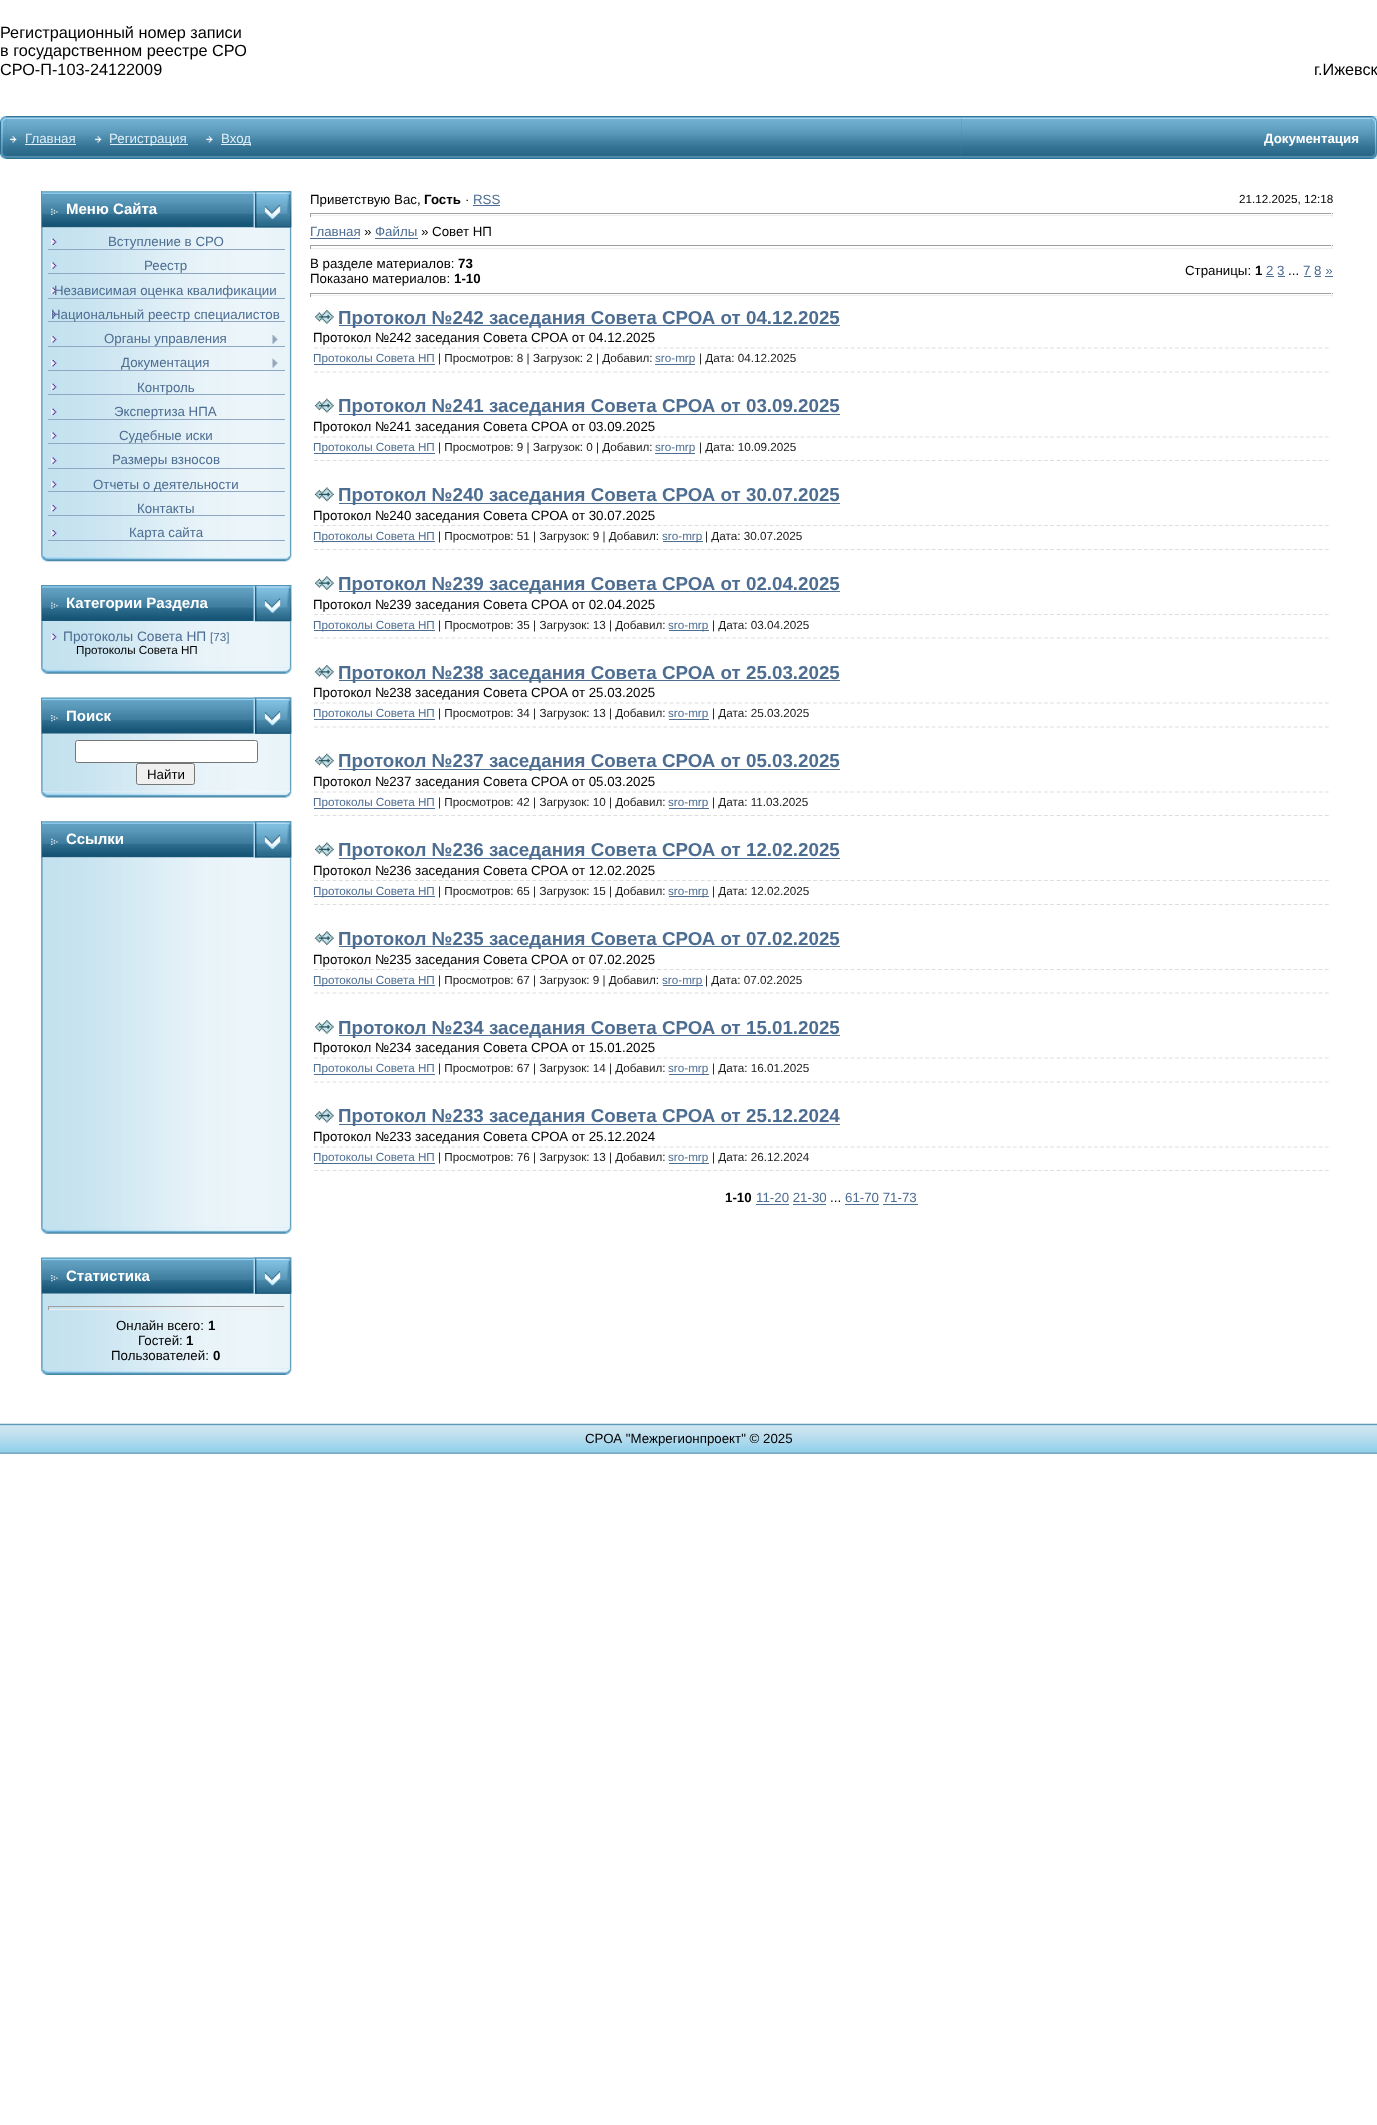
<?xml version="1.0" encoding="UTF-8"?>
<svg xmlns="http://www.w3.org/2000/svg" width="1377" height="2125">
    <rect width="100%" height="100%" fill="#FFFFFF"/>
    <text font-family="Liberation Sans" font-size="16.25" fill="#000000">
        <tspan x="0" y="38">Регистрационный номер записи</tspan>
        <tspan x="0" y="56">в государственном реестре СРО</tspan>
        <tspan x="0" y="75">СРО-П-103-24122009</tspan>
    </text>
    <text x="1314" y="75" font-family="Liberation Sans" font-size="16.25" fill="#000000">г.Ижевск</text>
    <rect x="6" y="116" width="1371" height="43" fill="#318EB7"/>
    <image x="6" y="116" width="955" height="43" href="img_02.png"/>
    <image x="0" y="116" width="7" height="43" href="img_01.png"/>
    <image x="9" y="136" width="8" height="7" href="img_03.png"/>
    <text x="25" y="143" font-family="Liberation Sans" font-size="13.3" fill="#DDEEF7">Главная</text>
    <rect x="25" y="144" width="51" height="1" fill="#DDEEF7"/>
    <image x="94" y="136" width="8" height="7" href="img_03.png"/>
    <rect x="110" y="144" width="78" height="1" fill="#DDEEF7"/>
    <text x="109" y="143" font-family="Liberation Sans" font-size="13.3" fill="#DDEEF7">Регистрация</text>
    <image x="206" y="136" width="7" height="7" href="img_04.png"/>
    <rect x="221" y="144" width="30" height="1" fill="#DDEEF7"/>
    <text x="221" y="143" font-family="Liberation Sans" font-size="13.3" fill="#DDEEF7">Вход</text>
    <image x="961" y="116" width="410" height="43" href="img_05.png"/>
    <text x="1264" y="143" font-family="Liberation Sans" font-size="13.3" font-weight="700" fill="#FFFFFF">Документация</text>
    <image x="1371" y="116" width="6" height="43" href="img_06.png"/>
    <image x="42" y="191" width="212" height="37" href="img_07.png"/>
    <rect x="41" y="191" width="1" height="37" fill="#5694B5"/>
    <image x="51" y="208" width="7" height="7" href="img_08.png"/>
    <text x="66" y="214" font-family="Liberation Sans" font-size="15" font-weight="700" fill="#FFFFFF">Меню Сайта</text>
    <image x="253" y="191" width="39" height="37" href="img_09.png"/>
    <image x="41" y="227" width="251" height="328" href="img_11.png"/>
    <image x="253" y="191" width="39" height="37" href="img_10.png"/>
    <image x="51" y="238" width="6" height="7" href="img_12.png"/>
    <rect x="48" y="249" width="237" height="1" fill="#8EA8C4"/>
    <text x="108" y="246" font-family="Liberation Sans" font-size="13.3" fill="#4D6D91">Вступление в СРО</text>
    <image x="51" y="262" width="6" height="7" href="img_13.png"/>
    <rect x="48" y="273" width="237" height="1" fill="#8EA8C4"/>
    <text x="144" y="270" font-family="Liberation Sans" font-size="13.3" fill="#4D6D91">Реестр</text>
    <image x="51" y="287" width="6" height="7" href="img_13.png"/>
    <rect x="48" y="298" width="237" height="1" fill="#8EA8C4"/>
    <text x="54" y="295" font-family="Liberation Sans" font-size="13.3" fill="#4D6D91">Независимая оценка квалификации</text>
    <image x="51" y="311" width="6" height="7" href="img_14.png"/>
    <rect x="48" y="321" width="237" height="1" fill="#8EA8C4"/>
    <text x="51" y="319" font-family="Liberation Sans" font-size="13.3" fill="#4D6D91">Национальный реестр специалистов</text>
    <image x="51" y="336" width="6" height="7" href="img_14.png"/>
    <rect x="48" y="346" width="237" height="1" fill="#8EA8C4"/>
    <text x="104" y="343" font-family="Liberation Sans" font-size="13.3" fill="#4D6D91">Органы управления</text>
    <image x="272" y="335" width="6" height="9" href="img_15.png"/>
    <image x="51" y="360" width="6" height="7" href="img_16.png"/>
    <rect x="48" y="370" width="237" height="1" fill="#8EA8C4"/>
    <text x="121" y="367" font-family="Liberation Sans" font-size="13.3" fill="#4D6D91">Документация</text>
    <image x="272" y="358" width="6" height="10" href="img_17.png"/>
    <image x="51" y="383" width="6" height="7" href="img_12.png"/>
    <rect x="48" y="394" width="237" height="1" fill="#8EA8C4"/>
    <text x="137" y="392" font-family="Liberation Sans" font-size="13.3" fill="#4D6D91">Контроль</text>
    <image x="51" y="408" width="6" height="7" href="img_12.png"/>
    <rect x="48" y="419" width="237" height="1" fill="#8EA8C4"/>
    <text x="114" y="416" font-family="Liberation Sans" font-size="13.3" fill="#4D6D91">Экспертиза НПА</text>
    <image x="51" y="432" width="6" height="7" href="img_13.png"/>
    <rect x="48" y="443" width="237" height="1" fill="#8EA8C4"/>
    <text x="119" y="440" font-family="Liberation Sans" font-size="13.3" fill="#4D6D91">Судебные иски</text>
    <image x="51" y="457" width="6" height="7" href="img_13.png"/>
    <rect x="48" y="468" width="237" height="1" fill="#8EA8C4"/>
    <text x="112" y="464" font-family="Liberation Sans" font-size="13.3" fill="#4D6D91">Размеры взносов</text>
    <image x="51" y="481" width="6" height="7" href="img_14.png"/>
    <rect x="48" y="491" width="237" height="1" fill="#8EA8C4"/>
    <text x="93" y="489" font-family="Liberation Sans" font-size="13.3" fill="#4D6D91">Отчеты о деятельности</text>
    <image x="51" y="505" width="6" height="7" href="img_16.png"/>
    <rect x="48" y="515" width="237" height="1" fill="#8EA8C4"/>
    <text x="137" y="513" font-family="Liberation Sans" font-size="13.3" fill="#4D6D91">Контакты</text>
    <image x="51" y="530" width="6" height="7" href="img_16.png"/>
    <rect x="48" y="540" width="237" height="1" fill="#8EA8C4"/>
    <text x="129" y="537" font-family="Liberation Sans" font-size="13.3" fill="#4D6D91">Карта сайта</text>
    <image x="41" y="555" width="251" height="7" href="img_18.png"/>
    <image x="42" y="585" width="212" height="36" href="img_19.png"/>
    <rect x="41" y="585" width="1" height="36" fill="#5694B5"/>
    <image x="51" y="602" width="7" height="7" href="img_20.png"/>
    <text x="66" y="608" font-family="Liberation Sans" font-size="15" font-weight="700" fill="#FFFFFF">Категории Раздела</text>
    <image x="253" y="585" width="39" height="37" href="img_21.png"/>
    <rect x="41" y="621" width="250" height="47" fill="#C3E1EF"/>
    <image x="41" y="621" width="251" height="47" href="img_23.png"/>
    <image x="253" y="585" width="39" height="37" href="img_22.png"/>
    <image x="51" y="633" width="6" height="7" href="img_12.png"/>
    <text x="63" y="641" font-family="Liberation Sans" font-size="13.75" fill="#4D6D91">Протоколы Совета НП</text>
    <text x="210" y="641" font-family="Liberation Sans" font-size="11.7" fill="#4D6D91">[73]</text>
    <text x="76" y="654" font-family="Liberation Sans" font-size="11.7" fill="#000000">Протоколы Совета НП</text>
    <image x="41" y="667" width="251" height="7" href="img_24.png"/>
    <image x="41" y="697" width="213" height="37" href="img_25.png"/>
    <rect x="41" y="698" width="1" height="36" fill="#5694B5"/>
    <image x="51" y="715" width="7" height="7" href="img_26.png"/>
    <text x="66" y="721" font-family="Liberation Sans" font-size="15" font-weight="700" fill="#FFFFFF">Поиск</text>
    <image x="253" y="697" width="39" height="37" href="img_27.png"/>
    <image x="41" y="733" width="251" height="59" href="img_29.png"/>
    <image x="253" y="697" width="39" height="37" href="img_28.png"/>
    <rect x="75.5" y="740.5" width="182" height="22" rx="2" fill="#FFFFFF" stroke="#767676"/>
    <rect x="136.5" y="763.5" width="58" height="21" rx="2" fill="#EFEFEF" stroke="#767676"/>
    <text x="147" y="779" font-family="Liberation Sans" font-size="13.3" fill="#000000">Найти</text>
    <image x="41" y="791" width="251" height="7" href="img_30.png"/>
    <image x="42" y="821" width="212" height="37" href="img_07.png"/>
    <rect x="41" y="821" width="1" height="37" fill="#5694B5"/>
    <image x="51" y="838" width="7" height="7" href="img_08.png"/>
    <text x="66" y="844" font-family="Liberation Sans" font-size="15" font-weight="700" fill="#FFFFFF">Ссылки</text>
    <image x="253" y="821" width="39" height="37" href="img_09.png"/>
    <rect x="41" y="858" width="250" height="370" fill="#C3E1EF"/>
    <image x="41" y="857" width="251" height="371" href="img_31.png"/>
    <image x="253" y="821" width="39" height="37" href="img_10.png"/>
    <image x="41" y="1227" width="251" height="7" href="img_24.png"/>
    <image x="41" y="1257" width="213" height="37" href="img_25.png"/>
    <rect x="41" y="1258" width="1" height="36" fill="#5694B5"/>
    <image x="51" y="1275" width="7" height="7" href="img_26.png"/>
    <text x="66" y="1281" font-family="Liberation Sans" font-size="15" font-weight="700" fill="#FFFFFF">Статистика</text>
    <image x="253" y="1257" width="39" height="37" href="img_27.png"/>
    <rect x="41" y="1294" width="250" height="75" fill="#C3E1EF"/>
    <image x="41" y="1293" width="251" height="76" href="img_32.png"/>
    <image x="253" y="1257" width="39" height="37" href="img_28.png"/>
    <rect x="48" y="1306" width="237" height="1" fill="#9F9F9F"/>
    <rect x="284" y="1306" width="1" height="4" fill="#EEEEEE"/>
    <rect x="48" y="1309" width="237" height="1" fill="#EEEEEE"/>
    <rect x="48" y="1306" width="1" height="4" fill="#9F9F9F"/>
    <text x="116" y="1330" font-family="Liberation Sans" font-size="13.3" fill="#000000">Онлайн всего:</text>
    <text x="208" y="1330" font-family="Liberation Sans" font-size="13.3" font-weight="700" fill="#000000">1</text>
    <text x="138" y="1345" font-family="Liberation Sans" font-size="13.3" fill="#000000">Гостей:</text>
    <text x="186" y="1345" font-family="Liberation Sans" font-size="13.3" font-weight="700" fill="#000000">1</text>
    <text x="111" y="1360" font-family="Liberation Sans" font-size="13.3" fill="#000000">Пользователей:</text>
    <text x="213" y="1360" font-family="Liberation Sans" font-size="13.3" font-weight="700" fill="#000000">0</text>
    <image x="41" y="1368" width="251" height="7" href="img_33.png"/>
    <text x="310" y="204" font-family="Liberation Sans" font-size="13.3" fill="#000000">Приветствую Вас,</text>
    <text x="424" y="204" font-family="Liberation Sans" font-size="13.3" font-weight="700" fill="#000000">Гость</text>
    <text x="465" y="204" font-family="Liberation Sans" font-size="13.3" fill="#000000">·</text>
    <text x="473" y="204" font-family="Liberation Sans" font-size="13.3" fill="#4D6D91">RSS</text>
    <rect x="473" y="205" width="27" height="1" fill="#4D6D91"/>
    <text x="1239" y="203" font-family="Liberation Sans" font-size="11.7" fill="#000000">21.12.2025, 12:18</text>
    <rect x="310" y="213" width="1023" height="1" fill="#9F9F9F"/>
    <rect x="1331" y="213" width="1" height="4" fill="#EEEEEE"/>
    <rect x="310" y="215" width="1023" height="1" fill="#EEEEEE"/>
    <rect x="310" y="213" width="1" height="4" fill="#9F9F9F"/>
    <text x="310" y="236" font-family="Liberation Sans" font-size="13.3" fill="#4D6D91">Главная</text>
    <rect x="310" y="238" width="50" height="1" fill="#4D6D91"/>
    <text x="364" y="236" font-family="Liberation Sans" font-size="13.3" fill="#000000">»</text>
    <text x="375" y="236" font-family="Liberation Sans" font-size="13.3" fill="#4D6D91">Файлы</text>
    <rect x="375" y="238" width="43" height="1" fill="#4D6D91"/>
    <text x="421" y="236" font-family="Liberation Sans" font-size="13.3" fill="#000000">» Совет НП</text>
    <rect x="310" y="245" width="1023" height="1" fill="#9F9F9F"/>
    <rect x="1331" y="245" width="1" height="4" fill="#EEEEEE"/>
    <rect x="310" y="248" width="1023" height="1" fill="#EEEEEE"/>
    <rect x="310" y="245" width="1" height="4" fill="#9F9F9F"/>
    <text x="310" y="268" font-family="Liberation Sans" font-size="13.3" fill="#000000">В разделе материалов:</text>
    <text x="458" y="268" font-family="Liberation Sans" font-size="13.3" font-weight="700" fill="#000000">73</text>
    <text x="310" y="283" font-family="Liberation Sans" font-size="13.3" fill="#000000">Показано материалов:</text>
    <text x="454" y="283" font-family="Liberation Sans" font-size="13.3" font-weight="700" fill="#000000">1-10</text>
    <text x="1185" y="275" font-family="Liberation Sans" font-size="13.3" fill="#000000">Страницы:</text>
    <text x="1255" y="275" font-family="Liberation Sans" font-size="13.3" font-weight="700" fill="#000000">1</text>
    <text x="1266" y="275" font-family="Liberation Sans" font-size="13.3" fill="#4D6D91">2 3</text>
    <rect x="1266" y="276" width="8" height="1" fill="#4D6D91"/>
    <text x="1288" y="275" font-family="Liberation Sans" font-size="13.3" fill="#000000">...</text>
    <rect x="1278" y="276" width="7" height="1" fill="#4D6D91"/>
    <rect x="1304" y="276" width="7" height="1" fill="#4D6D91"/>
    <text x="1303" y="275" font-family="Liberation Sans" font-size="13.3" fill="#4D6D91">7 8 »</text>
    <rect x="1315" y="276" width="6" height="1" fill="#4D6D91"/>
    <rect x="1325" y="276" width="8" height="1" fill="#4D6D91"/>
    <rect x="310" y="293" width="1023" height="1" fill="#9F9F9F"/>
    <rect x="1331" y="293" width="1" height="4" fill="#EEEEEE"/>
    <rect x="310" y="295" width="1023" height="1" fill="#EEEEEE"/>
    <rect x="310" y="293" width="1" height="4" fill="#9F9F9F"/>
    <image x="315" y="310" width="19" height="14" href="img_34.png"/>
    <rect x="339" y="325" width="501" height="1" fill="#4D6D91"/>
    <text x="338" y="324" font-family="Liberation Sans" font-size="18.75" font-weight="700" fill="#4D6D91">Протокол №242 заседания Совета СРОА от 04.12.2025</text>
    <text x="313" y="342" font-family="Liberation Sans" font-size="13.3" fill="#000000">Протокол №242 заседания Совета СРОА от 04.12.2025</text>
    <path d="M 314 348 H 1329" fill="none" stroke="#DDDDDD" stroke-width="1.2" stroke-dasharray="3.75 2.49"/>
    <path d="M 314 372 H 1329" fill="none" stroke="#DDDDDD" stroke-width="1.2" stroke-dasharray="3.75 2.49"/>
    <rect x="314" y="364" width="121" height="1" fill="#4D6D91"/>
    <text x="313" y="362" font-family="Liberation Sans" font-size="11.7" fill="#4D6D91">Протоколы Совета НП</text>
    <text x="438" y="362" font-family="Liberation Sans" font-size="11.7" fill="#1A1A1A">| Просмотров: 8 | Загрузок: 2 | Добавил:</text>
    <rect x="655" y="364" width="40" height="1" fill="#4D6D91"/>
    <text x="655" y="362" font-family="Liberation Sans" font-size="11.7" fill="#4D6D91">sro-mrp</text>
    <text x="699" y="362" font-family="Liberation Sans" font-size="11.7" fill="#1A1A1A">| Дата: 04.12.2025</text>
    <image x="315" y="398" width="19" height="15" href="img_35.png"/>
    <rect x="339" y="414" width="501" height="1" fill="#4D6D91"/>
    <text x="338" y="412" font-family="Liberation Sans" font-size="18.75" font-weight="700" fill="#4D6D91">Протокол №241 заседания Совета СРОА от 03.09.2025</text>
    <text x="313" y="431" font-family="Liberation Sans" font-size="13.3" fill="#000000">Протокол №241 заседания Совета СРОА от 03.09.2025</text>
    <path d="M 314 437 H 1329" fill="none" stroke="#DDDDDD" stroke-width="1.2" stroke-dasharray="3.75 2.49"/>
    <path d="M 314 460.5 H 1329" fill="none" stroke="#DDDDDD" stroke-width="1.2" stroke-dasharray="3.75 2.49"/>
    <rect x="314" y="453" width="121" height="1" fill="#4D6D91"/>
    <text x="313" y="451" font-family="Liberation Sans" font-size="11.7" fill="#4D6D91">Протоколы Совета НП</text>
    <text x="438" y="451" font-family="Liberation Sans" font-size="11.7" fill="#1A1A1A">| Просмотров: 9 | Загрузок: 0 | Добавил:</text>
    <rect x="655" y="453" width="40" height="1" fill="#4D6D91"/>
    <text x="655" y="451" font-family="Liberation Sans" font-size="11.7" fill="#4D6D91">sro-mrp</text>
    <text x="699" y="451" font-family="Liberation Sans" font-size="11.7" fill="#1A1A1A">| Дата: 10.09.2025</text>
    <image x="315" y="487" width="19" height="15" href="img_36.png"/>
    <rect x="339" y="503" width="501" height="1" fill="#4D6D91"/>
    <text x="338" y="501" font-family="Liberation Sans" font-size="18.75" font-weight="700" fill="#4D6D91">Протокол №240 заседания Совета СРОА от 30.07.2025</text>
    <text x="313" y="520" font-family="Liberation Sans" font-size="13.3" fill="#000000">Протокол №240 заседания Совета СРОА от 30.07.2025</text>
    <path d="M 314 525.5 H 1329" fill="none" stroke="#DDDDDD" stroke-width="1.2" stroke-dasharray="3.75 2.49"/>
    <path d="M 314 549.5 H 1329" fill="none" stroke="#DDDDDD" stroke-width="1.2" stroke-dasharray="3.75 2.49"/>
    <rect x="314" y="541" width="121" height="1" fill="#4D6D91"/>
    <text x="313" y="540" font-family="Liberation Sans" font-size="11.7" fill="#4D6D91">Протоколы Совета НП</text>
    <text x="438" y="540" font-family="Liberation Sans" font-size="11.7" fill="#1A1A1A">| Просмотров: 51 | Загрузок: 9 | Добавил:</text>
    <rect x="663" y="541" width="40" height="1" fill="#4D6D91"/>
    <text x="662" y="540" font-family="Liberation Sans" font-size="11.7" fill="#4D6D91">sro-mrp</text>
    <text x="705" y="540" font-family="Liberation Sans" font-size="11.7" fill="#1A1A1A">| Дата: 30.07.2025</text>
    <image x="315" y="576" width="19" height="14" href="img_37.png"/>
    <rect x="339" y="591" width="501" height="1" fill="#4D6D91"/>
    <text x="338" y="590" font-family="Liberation Sans" font-size="18.75" font-weight="700" fill="#4D6D91">Протокол №239 заседания Совета СРОА от 02.04.2025</text>
    <text x="313" y="609" font-family="Liberation Sans" font-size="13.3" fill="#000000">Протокол №239 заседания Совета СРОА от 02.04.2025</text>
    <path d="M 314 614.5 H 1329" fill="none" stroke="#DDDDDD" stroke-width="1.2" stroke-dasharray="3.75 2.49"/>
    <path d="M 314 638 H 1329" fill="none" stroke="#DDDDDD" stroke-width="1.2" stroke-dasharray="3.75 2.49"/>
    <rect x="314" y="630" width="121" height="1" fill="#4D6D91"/>
    <text x="313" y="629" font-family="Liberation Sans" font-size="11.7" fill="#4D6D91">Протоколы Совета НП</text>
    <text x="438" y="629" font-family="Liberation Sans" font-size="11.7" fill="#1A1A1A">| Просмотров: 35 | Загрузок: 13 | Добавил:</text>
    <rect x="669" y="630" width="40" height="1" fill="#4D6D91"/>
    <text x="668" y="629" font-family="Liberation Sans" font-size="11.7" fill="#4D6D91">sro-mrp</text>
    <text x="712" y="629" font-family="Liberation Sans" font-size="11.7" fill="#1A1A1A">| Дата: 03.04.2025</text>
    <image x="315" y="665" width="19" height="14" href="img_34.png"/>
    <rect x="339" y="680" width="501" height="1" fill="#4D6D91"/>
    <text x="338" y="679" font-family="Liberation Sans" font-size="18.75" font-weight="700" fill="#4D6D91">Протокол №238 заседания Совета СРОА от 25.03.2025</text>
    <text x="313" y="697" font-family="Liberation Sans" font-size="13.3" fill="#000000">Протокол №238 заседания Совета СРОА от 25.03.2025</text>
    <path d="M 314 703 H 1329" fill="none" stroke="#DDDDDD" stroke-width="1.2" stroke-dasharray="3.75 2.49"/>
    <path d="M 314 727 H 1329" fill="none" stroke="#DDDDDD" stroke-width="1.2" stroke-dasharray="3.75 2.49"/>
    <rect x="314" y="719" width="121" height="1" fill="#4D6D91"/>
    <text x="313" y="717" font-family="Liberation Sans" font-size="11.7" fill="#4D6D91">Протоколы Совета НП</text>
    <text x="438" y="717" font-family="Liberation Sans" font-size="11.7" fill="#1A1A1A">| Просмотров: 34 | Загрузок: 13 | Добавил:</text>
    <rect x="669" y="719" width="40" height="1" fill="#4D6D91"/>
    <text x="668" y="717" font-family="Liberation Sans" font-size="11.7" fill="#4D6D91">sro-mrp</text>
    <text x="712" y="717" font-family="Liberation Sans" font-size="11.7" fill="#1A1A1A">| Дата: 25.03.2025</text>
    <image x="315" y="753" width="19" height="15" href="img_35.png"/>
    <rect x="339" y="769" width="501" height="1" fill="#4D6D91"/>
    <text x="338" y="767" font-family="Liberation Sans" font-size="18.75" font-weight="700" fill="#4D6D91">Протокол №237 заседания Совета СРОА от 05.03.2025</text>
    <text x="313" y="786" font-family="Liberation Sans" font-size="13.3" fill="#000000">Протокол №237 заседания Совета СРОА от 05.03.2025</text>
    <path d="M 314 792 H 1329" fill="none" stroke="#DDDDDD" stroke-width="1.2" stroke-dasharray="3.75 2.49"/>
    <path d="M 314 815.5 H 1329" fill="none" stroke="#DDDDDD" stroke-width="1.2" stroke-dasharray="3.75 2.49"/>
    <rect x="314" y="808" width="121" height="1" fill="#4D6D91"/>
    <text x="313" y="806" font-family="Liberation Sans" font-size="11.7" fill="#4D6D91">Протоколы Совета НП</text>
    <text x="438" y="806" font-family="Liberation Sans" font-size="11.7" fill="#1A1A1A">| Просмотров: 42 | Загрузок: 10 | Добавил:</text>
    <rect x="669" y="808" width="40" height="1" fill="#4D6D91"/>
    <text x="668" y="806" font-family="Liberation Sans" font-size="11.7" fill="#4D6D91">sro-mrp</text>
    <text x="712" y="806" font-family="Liberation Sans" font-size="11.7" fill="#1A1A1A">| Дата: 11.03.2025</text>
    <image x="315" y="842" width="19" height="15" href="img_36.png"/>
    <rect x="339" y="858" width="501" height="1" fill="#4D6D91"/>
    <text x="338" y="856" font-family="Liberation Sans" font-size="18.75" font-weight="700" fill="#4D6D91">Протокол №236 заседания Совета СРОА от 12.02.2025</text>
    <text x="313" y="875" font-family="Liberation Sans" font-size="13.3" fill="#000000">Протокол №236 заседания Совета СРОА от 12.02.2025</text>
    <path d="M 314 880.5 H 1329" fill="none" stroke="#DDDDDD" stroke-width="1.2" stroke-dasharray="3.75 2.49"/>
    <path d="M 314 904.5 H 1329" fill="none" stroke="#DDDDDD" stroke-width="1.2" stroke-dasharray="3.75 2.49"/>
    <rect x="314" y="896" width="121" height="1" fill="#4D6D91"/>
    <text x="313" y="895" font-family="Liberation Sans" font-size="11.7" fill="#4D6D91">Протоколы Совета НП</text>
    <text x="438" y="895" font-family="Liberation Sans" font-size="11.7" fill="#1A1A1A">| Просмотров: 65 | Загрузок: 15 | Добавил:</text>
    <rect x="669" y="896" width="40" height="1" fill="#4D6D91"/>
    <text x="668" y="895" font-family="Liberation Sans" font-size="11.7" fill="#4D6D91">sro-mrp</text>
    <text x="712" y="895" font-family="Liberation Sans" font-size="11.7" fill="#1A1A1A">| Дата: 12.02.2025</text>
    <image x="315" y="931" width="19" height="14" href="img_37.png"/>
    <rect x="339" y="946" width="501" height="1" fill="#4D6D91"/>
    <text x="338" y="945" font-family="Liberation Sans" font-size="18.75" font-weight="700" fill="#4D6D91">Протокол №235 заседания Совета СРОА от 07.02.2025</text>
    <text x="313" y="964" font-family="Liberation Sans" font-size="13.3" fill="#000000">Протокол №235 заседания Совета СРОА от 07.02.2025</text>
    <path d="M 314 969.5 H 1329" fill="none" stroke="#DDDDDD" stroke-width="1.2" stroke-dasharray="3.75 2.49"/>
    <path d="M 314 993 H 1329" fill="none" stroke="#DDDDDD" stroke-width="1.2" stroke-dasharray="3.75 2.49"/>
    <rect x="314" y="985" width="121" height="1" fill="#4D6D91"/>
    <text x="313" y="984" font-family="Liberation Sans" font-size="11.7" fill="#4D6D91">Протоколы Совета НП</text>
    <text x="438" y="984" font-family="Liberation Sans" font-size="11.7" fill="#1A1A1A">| Просмотров: 67 | Загрузок: 9 | Добавил:</text>
    <rect x="663" y="985" width="40" height="1" fill="#4D6D91"/>
    <text x="662" y="984" font-family="Liberation Sans" font-size="11.7" fill="#4D6D91">sro-mrp</text>
    <text x="705" y="984" font-family="Liberation Sans" font-size="11.7" fill="#1A1A1A">| Дата: 07.02.2025</text>
    <image x="315" y="1020" width="19" height="14" href="img_34.png"/>
    <rect x="339" y="1035" width="501" height="1" fill="#4D6D91"/>
    <text x="338" y="1034" font-family="Liberation Sans" font-size="18.75" font-weight="700" fill="#4D6D91">Протокол №234 заседания Совета СРОА от 15.01.2025</text>
    <text x="313" y="1052" font-family="Liberation Sans" font-size="13.3" fill="#000000">Протокол №234 заседания Совета СРОА от 15.01.2025</text>
    <path d="M 314 1058 H 1329" fill="none" stroke="#DDDDDD" stroke-width="1.2" stroke-dasharray="3.75 2.49"/>
    <path d="M 314 1082 H 1329" fill="none" stroke="#DDDDDD" stroke-width="1.2" stroke-dasharray="3.75 2.49"/>
    <rect x="314" y="1074" width="121" height="1" fill="#4D6D91"/>
    <text x="313" y="1072" font-family="Liberation Sans" font-size="11.7" fill="#4D6D91">Протоколы Совета НП</text>
    <text x="438" y="1072" font-family="Liberation Sans" font-size="11.7" fill="#1A1A1A">| Просмотров: 67 | Загрузок: 14 | Добавил:</text>
    <rect x="669" y="1074" width="40" height="1" fill="#4D6D91"/>
    <text x="668" y="1072" font-family="Liberation Sans" font-size="11.7" fill="#4D6D91">sro-mrp</text>
    <text x="712" y="1072" font-family="Liberation Sans" font-size="11.7" fill="#1A1A1A">| Дата: 16.01.2025</text>
    <image x="315" y="1108" width="19" height="15" href="img_35.png"/>
    <rect x="339" y="1124" width="501" height="1" fill="#4D6D91"/>
    <text x="338" y="1122" font-family="Liberation Sans" font-size="18.75" font-weight="700" fill="#4D6D91">Протокол №233 заседания Совета СРОА от 25.12.2024</text>
    <text x="313" y="1141" font-family="Liberation Sans" font-size="13.3" fill="#000000">Протокол №233 заседания Совета СРОА от 25.12.2024</text>
    <path d="M 314 1147 H 1329" fill="none" stroke="#DDDDDD" stroke-width="1.2" stroke-dasharray="3.75 2.49"/>
    <path d="M 314 1170.5 H 1329" fill="none" stroke="#DDDDDD" stroke-width="1.2" stroke-dasharray="3.75 2.49"/>
    <rect x="314" y="1163" width="121" height="1" fill="#4D6D91"/>
    <text x="313" y="1161" font-family="Liberation Sans" font-size="11.7" fill="#4D6D91">Протоколы Совета НП</text>
    <text x="438" y="1161" font-family="Liberation Sans" font-size="11.7" fill="#1A1A1A">| Просмотров: 76 | Загрузок: 13 | Добавил:</text>
    <rect x="669" y="1163" width="40" height="1" fill="#4D6D91"/>
    <text x="668" y="1161" font-family="Liberation Sans" font-size="11.7" fill="#4D6D91">sro-mrp</text>
    <text x="712" y="1161" font-family="Liberation Sans" font-size="11.7" fill="#1A1A1A">| Дата: 26.12.2024</text>
    <text x="725" y="1202" font-family="Liberation Sans" font-size="13.3" font-weight="700" fill="#000000">1-10</text>
    <text x="756" y="1202" font-family="Liberation Sans" font-size="13.3" fill="#4D6D91">11-20 21-30</text>
    <rect x="756" y="1204" width="33" height="1" fill="#4D6D91"/>
    <text x="830" y="1202" font-family="Liberation Sans" font-size="13.3" fill="#000000">...</text>
    <rect x="793" y="1204" width="33" height="1" fill="#4D6D91"/>
    <rect x="845" y="1204" width="34" height="1" fill="#4D6D91"/>
    <text x="845" y="1202" font-family="Liberation Sans" font-size="13.3" fill="#4D6D91">61-70 71-73</text>
    <rect x="883" y="1204" width="35" height="1" fill="#4D6D91"/>
    <image x="0" y="1423" width="1377" height="31" href="img_38.png"/>
    <text x="585" y="1443" font-family="Liberation Sans" font-size="13.3" fill="#000000">СРОА "Межрегионпроект" © 2025</text>
</svg>
